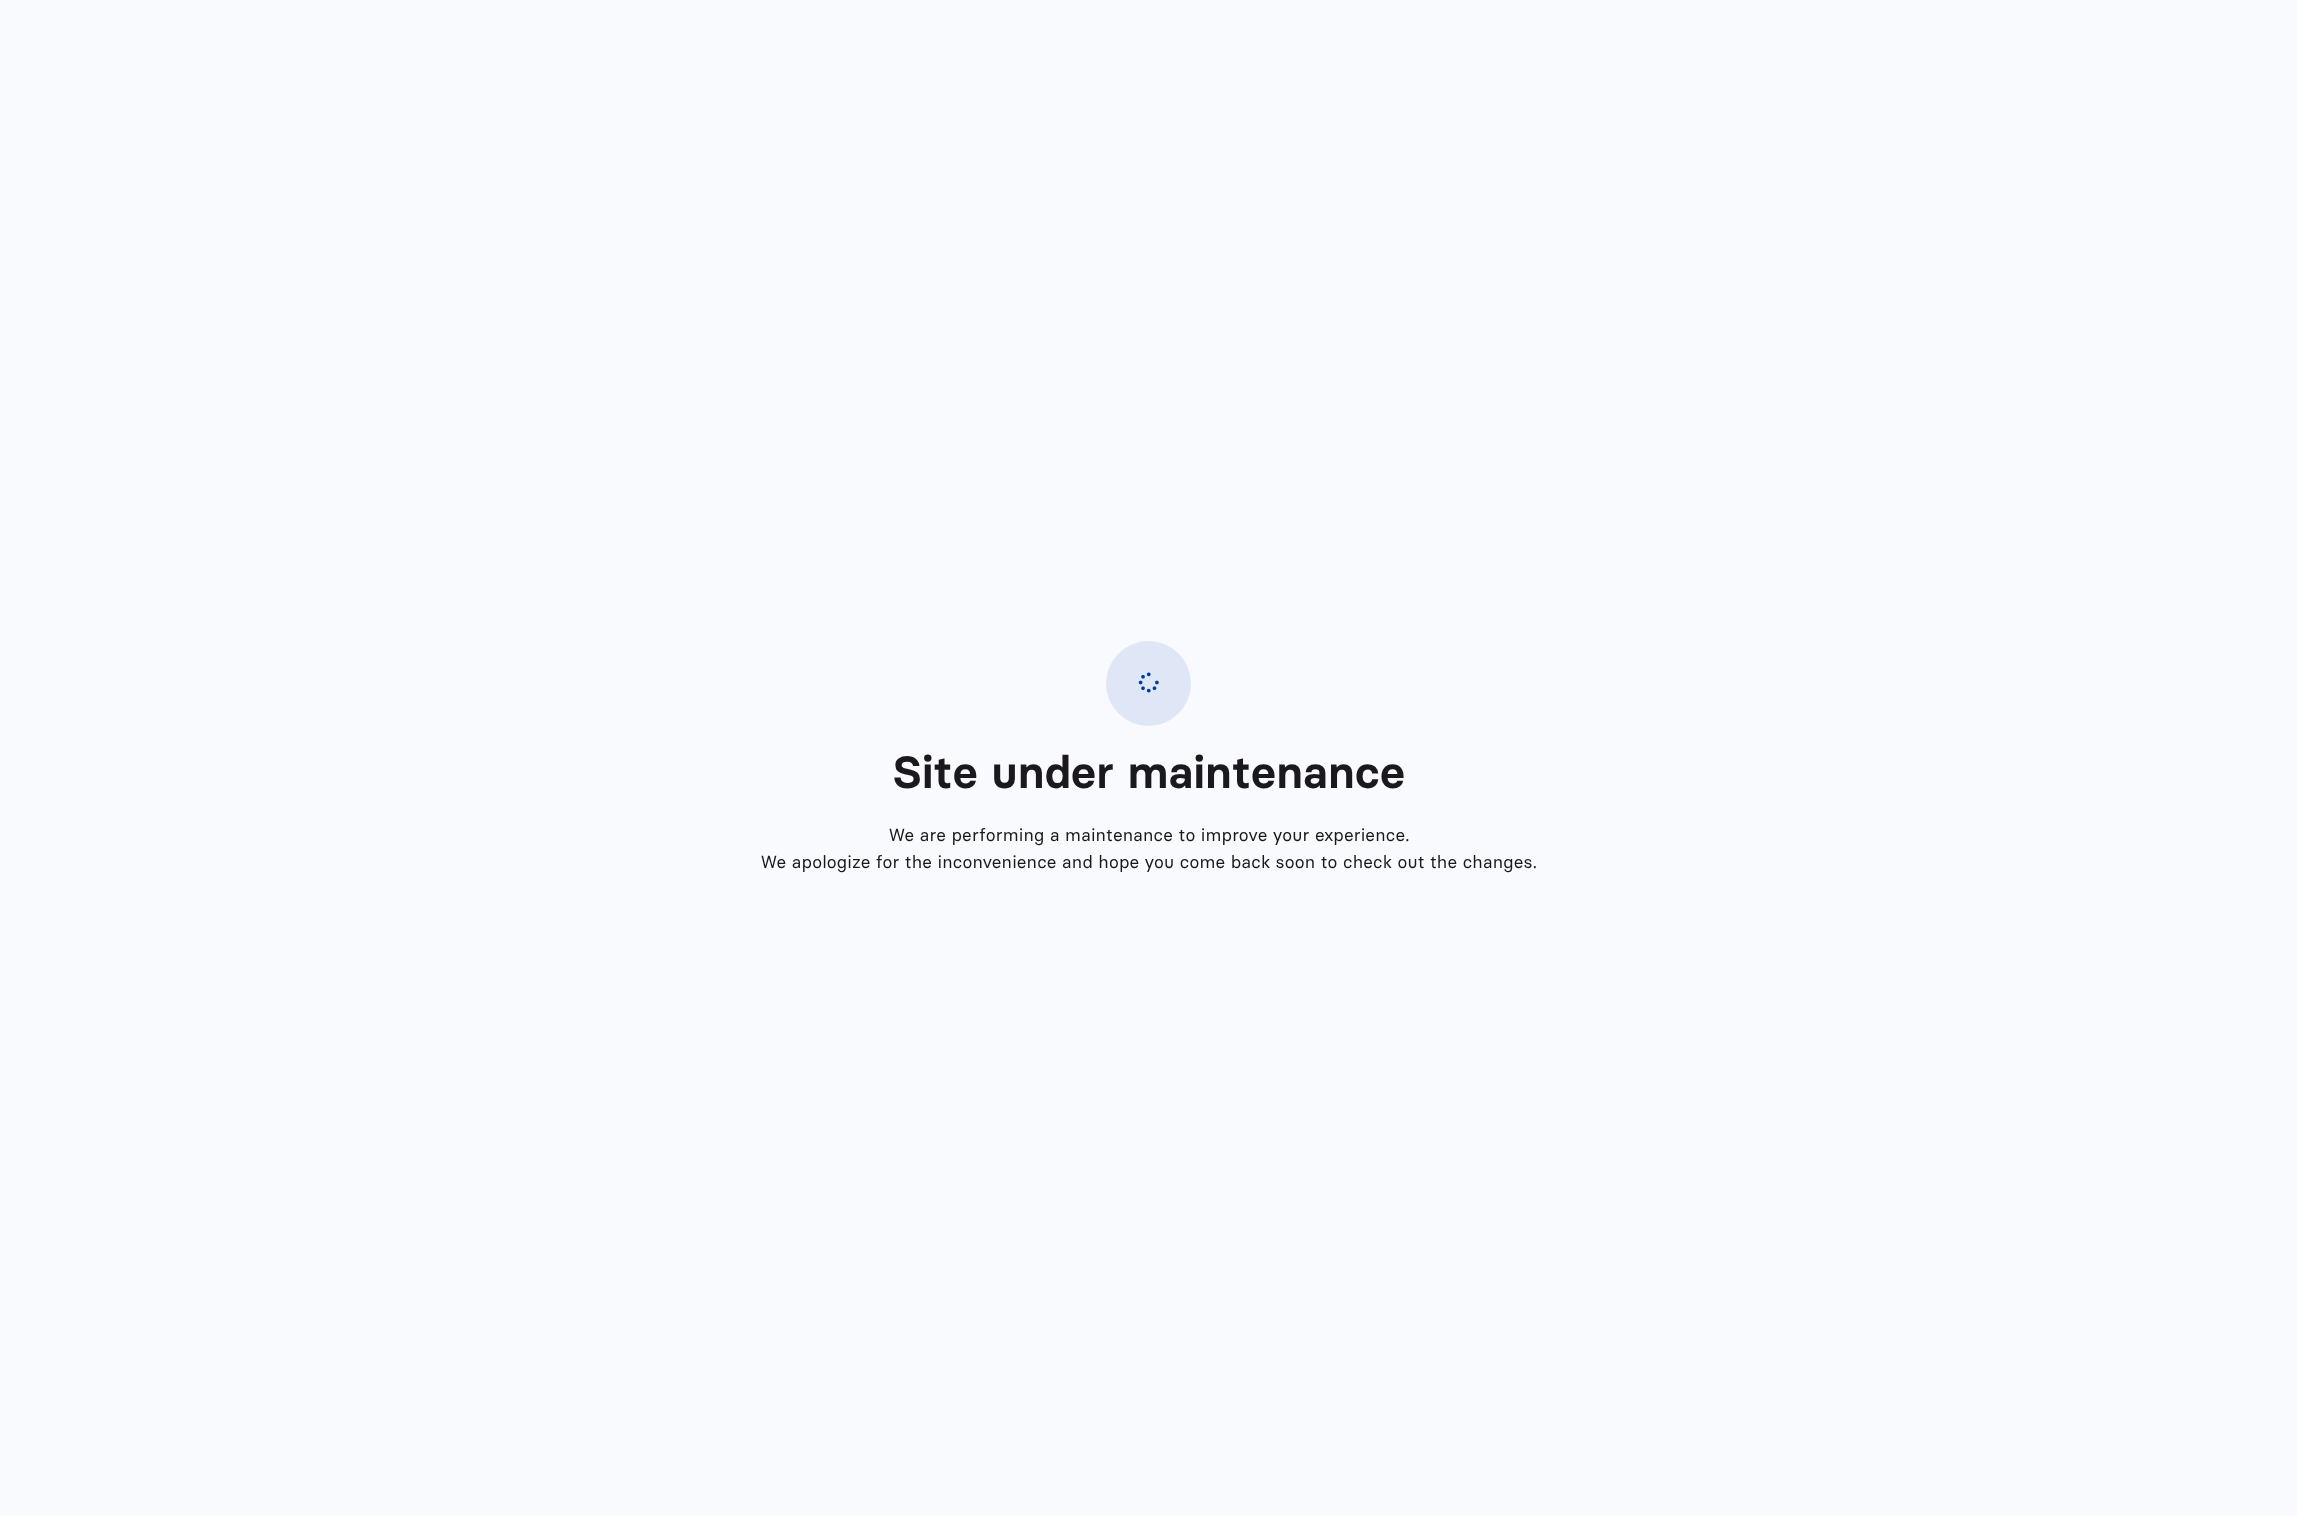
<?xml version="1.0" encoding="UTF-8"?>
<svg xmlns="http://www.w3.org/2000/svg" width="2297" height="1516">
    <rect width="100%" height="100%" fill="#F9FAFE"/>
    <image x="1138" y="672" width="21" height="21" href="img_01.png"/>
    <circle cx="1148.5" cy="683.5" r="42.5" fill="#003DA5" fill-opacity="0.1"/>
    <text x="893" y="788" font-family="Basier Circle" font-size="45" font-weight="600" letter-spacing="0.45" fill="#19191E">Site under maintenance</text>
    <text x="889" y="841" font-family="Basier Circle" font-size="17.5" letter-spacing="0.18" fill="#19191E">We are performing a maintenance to improve your experience.</text>
    <text x="761" y="868" font-family="Basier Circle" font-size="17.5" letter-spacing="0.18" fill="#19191E">We apologize for the inconvenience and hope you come back soon to check out the changes.</text>
</svg>
